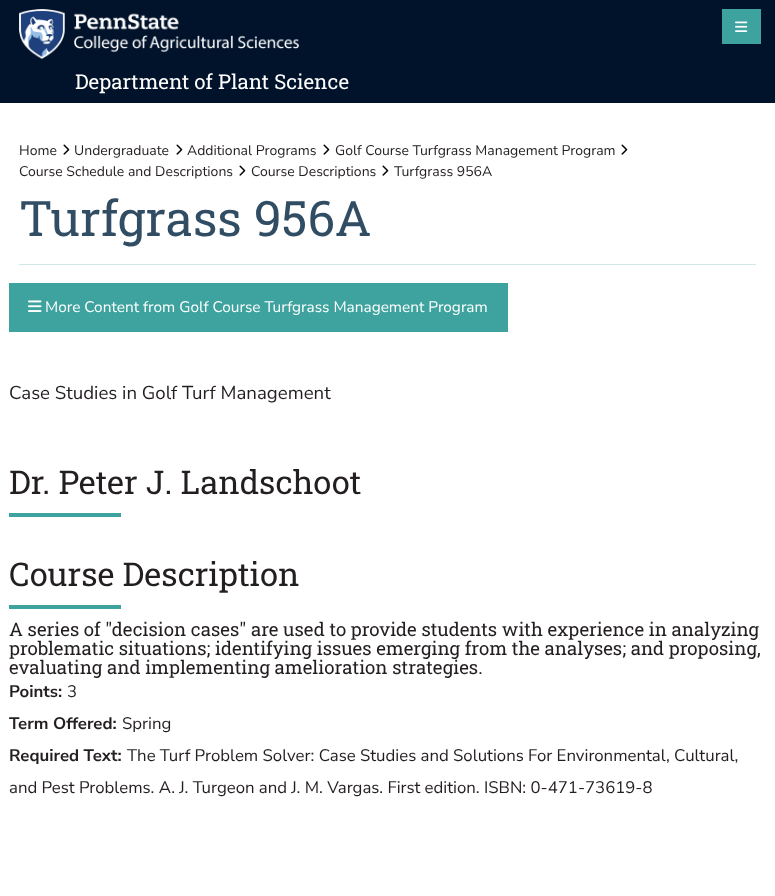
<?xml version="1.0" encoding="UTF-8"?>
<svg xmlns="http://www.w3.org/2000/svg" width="775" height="896">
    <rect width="100%" height="100%" fill="#FFFFFF"/>
    <rect x="0" y="0" width="775" height="103" fill="#00132B"/>
    <image x="19" y="9" width="280" height="50" href="img_01.png"/>
    <rect x="722" y="9" width="39" height="35" fill="#3EA39E"/>
    <image x="735" y="21" width="13" height="11" href="img_02.png"/>
    <text x="75" y="89" font-family="Roboto Slab" font-size="20.5" fill="#FFFFFF">Department of Plant Science</text>
    <rect x="19" y="264" width="737" height="1" fill="#CFE8E7"/>
    <text x="19" y="155" font-family="Nunito Sans" font-size="14" fill="#231E20">Home</text>
    <image x="63" y="144" width="7" height="11" href="img_03.png"/>
    <text x="74" y="155" font-family="Nunito Sans" font-size="14" fill="#231E20">Undergraduate</text>
    <image x="176" y="144" width="7" height="11" href="img_03.png"/>
    <text x="187" y="155" font-family="Nunito Sans" font-size="14" fill="#231E20">Additional Programs</text>
    <image x="323" y="144" width="7" height="11" href="img_03.png"/>
    <text x="335" y="155" font-family="Nunito Sans" font-size="14" fill="#231E20">Golf Course Turfgrass Management Program</text>
    <image x="621" y="144" width="7" height="11" href="img_03.png"/>
    <text x="19" y="176" font-family="Nunito Sans" font-size="14" fill="#231E20">Course Schedule and Descriptions</text>
    <image x="239" y="165" width="7" height="11" href="img_03.png"/>
    <text x="251" y="176" font-family="Nunito Sans" font-size="14" fill="#231E20">Course Descriptions</text>
    <image x="382" y="165" width="7" height="11" href="img_03.png"/>
    <text x="394" y="176" font-family="Nunito Sans" font-size="14" fill="#231E20">Turfgrass 956A</text>
    <text x="19" y="236" font-family="Roboto Slab" font-size="49" fill="#314D64">Turfgrass 956A</text>
    <rect x="9" y="283" width="499" height="49" fill="#3EA39E"/>
    <image x="28" y="300" width="14" height="12" href="img_04.png"/>
    <text x="45" y="312" font-family="Nunito Sans" font-size="15.4" fill="#FFFFFF">More Content from Golf Course Turfgrass Management Program</text>
    <text x="9" y="399" font-family="Nunito Sans" font-size="18.65" fill="#231E20">Case Studies in Golf Turf Management</text>
    <text x="9" y="494" font-family="Roboto Slab" font-size="32.75" fill="#231E20">Dr. Peter J. Landschoot</text>
    <rect x="9" y="513" width="112" height="4" fill="#3EA39E"/>
    <text x="9" y="586" font-family="Roboto Slab" font-size="32.75" fill="#231E20">Course Description</text>
    <rect x="9" y="605" width="112" height="4" fill="#3EA39E"/>
    <text font-family="Roboto Slab" font-size="18.65" fill="#231E20">
        <tspan x="9" y="636">A series of "decision cases" are used to provide students with experience in analyzing</tspan>
        <tspan x="9" y="655">problematic situations; identifying issues emerging from the analyses; and proposing,</tspan>
        <tspan x="9" y="674">evaluating and implementing amelioration strategies.</tspan>
    </text>
    <text x="9" y="697" font-family="Nunito Sans" font-size="16.8" font-weight="700" fill="#231E20">Points:</text>
    <text x="67" y="697" font-family="Nunito Sans" font-size="16.8" fill="#231E20">3</text>
    <text x="9" y="729" font-family="Nunito Sans" font-size="16.8" font-weight="700" fill="#231E20">Term Offered:</text>
    <text x="122" y="729" font-family="Nunito Sans" font-size="16.8" fill="#231E20">Spring</text>
    <text x="9" y="761" font-family="Nunito Sans" font-size="16.8" font-weight="700" fill="#231E20">Required Text:</text>
    <text x="127" y="761" font-family="Nunito Sans" font-size="16.8" fill="#231E20">The Turf Problem Solver: Case Studies and Solutions For Environmental, Cultural,</text>
    <text x="9" y="793" font-family="Nunito Sans" font-size="16.8" fill="#231E20">and Pest Problems. A. J. Turgeon and J. M. Vargas. First edition. ISBN: 0-471-73619-8</text>
</svg>
